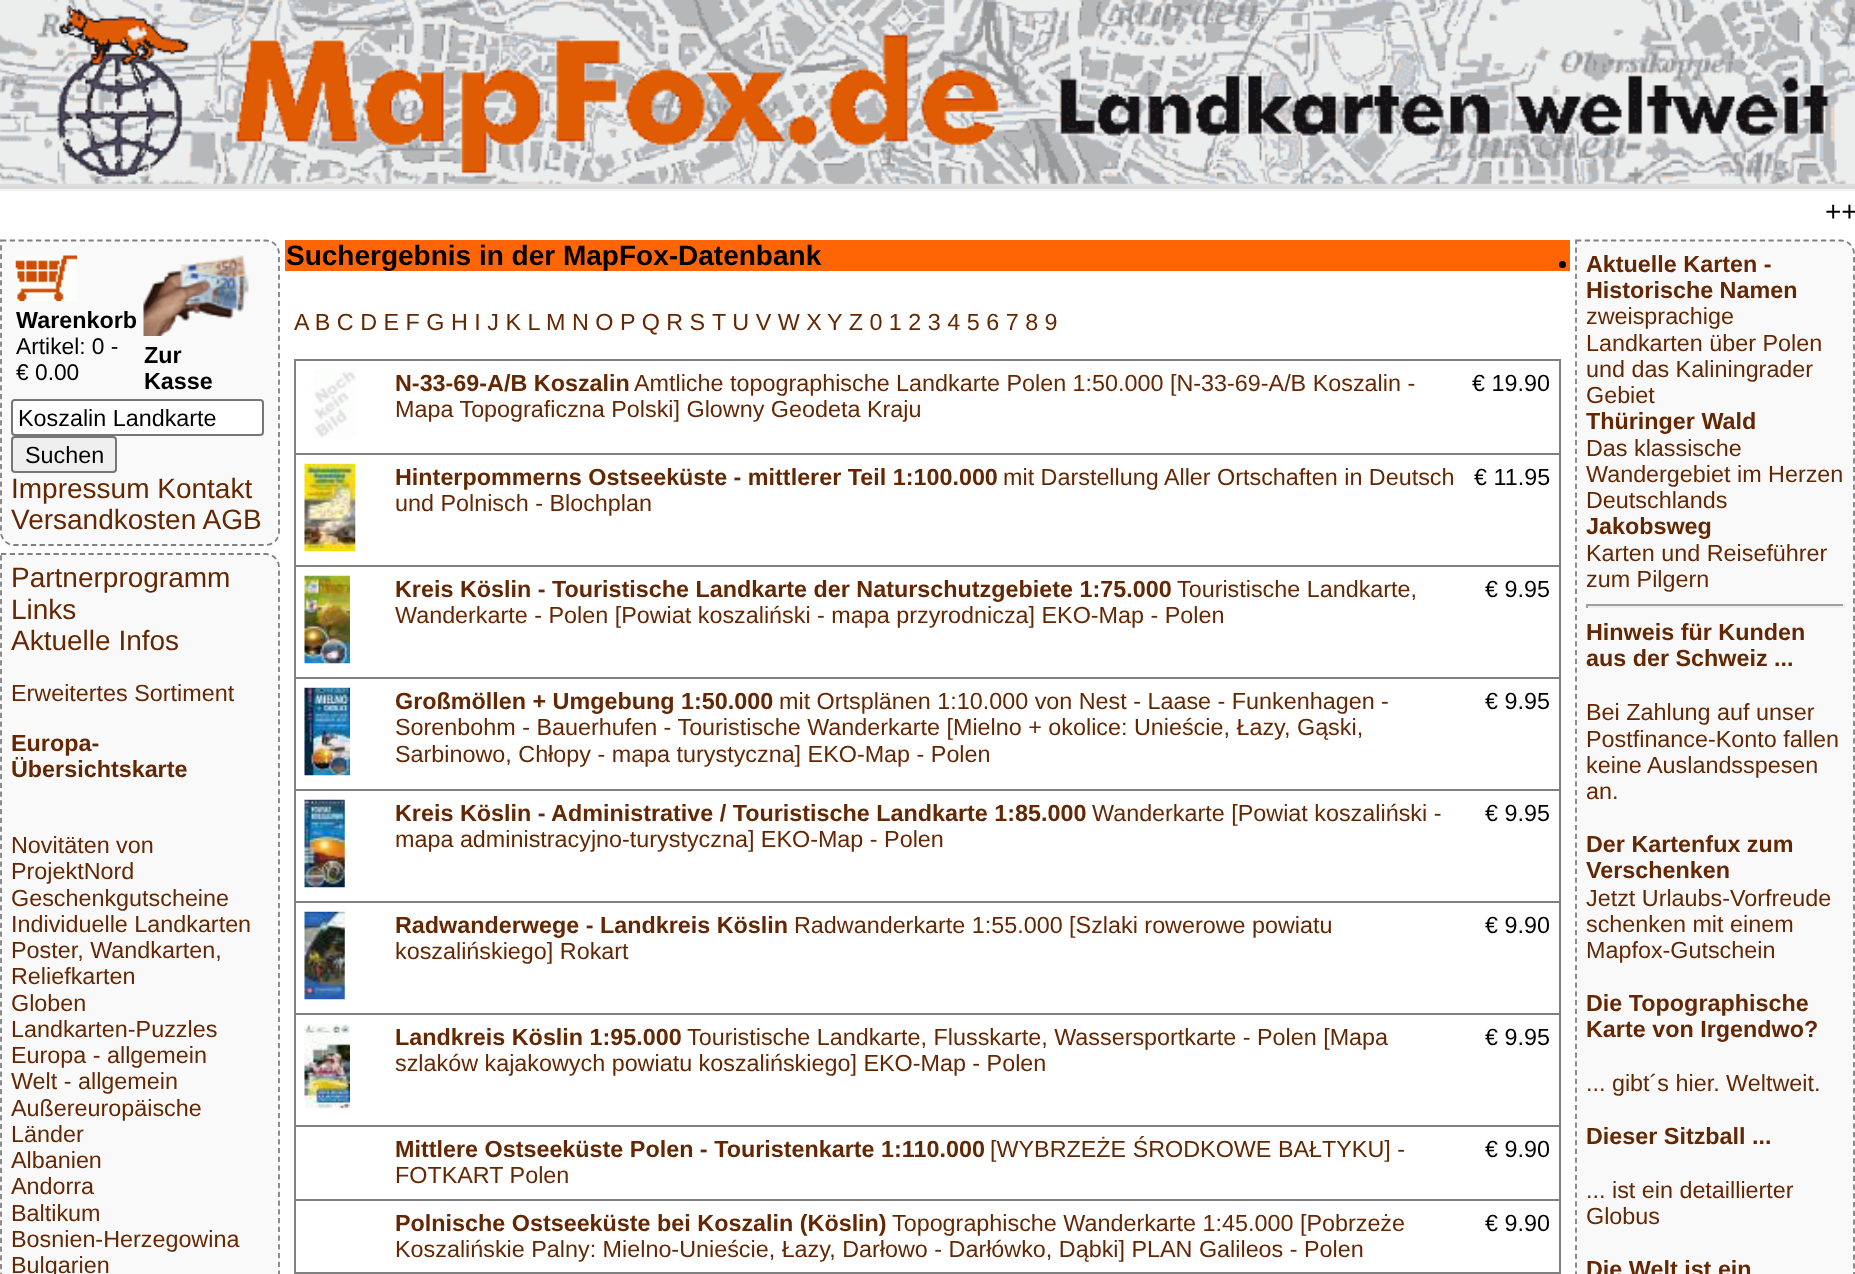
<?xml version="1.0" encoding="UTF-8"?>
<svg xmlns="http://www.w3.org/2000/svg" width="1855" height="1274">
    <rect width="100%" height="100%" fill="#FFFFFF"/>
    <rect x="0" y="189" width="1855" height="2" fill="#F1F1F1"/>
    <rect x="0" y="183" width="1855" height="6" fill="#DDDDDD"/>
    <image x="0" y="0" width="1855" height="184" href="img_01.png"/>
    <text x="1825" y="221" font-family="Liberation Sans" font-size="28" fill="#000000">++</text>
    <path d="M 0 240 H 266 C 273.5 240 280 246.5 280 254 V 532 C 280 539.5 273.5 546 266 546 H 14 C 6.5 546 0 539.5 0 532 Z" fill="#F9F9F9"/>
    <path d="M 1 240.5 H 266 C 273 240.5 279 246.5 279 254 V 532 C 279 539 273 545 266 545 H 14 C 7 545 1 539 1 532 Z" fill="none" stroke="#808080" stroke-width="1.8" stroke-dasharray="5.25 3.5"/>
    <image x="15" y="255" width="62" height="46" href="img_02.png"/>
    <text x="16" y="328" font-family="Liberation Sans" font-size="23.35" font-weight="700" fill="#000000">Warenkorb</text>
    <text font-family="Liberation Sans" font-size="22.75" fill="#000000">
        <tspan x="16" y="354">Artikel: 0 -</tspan>
        <tspan x="16" y="380">€ 0.00</tspan>
    </text>
    <image x="143" y="255" width="106" height="81" href="img_03.png"/>
    <text font-family="Liberation Sans" font-size="23.35" font-weight="700" fill="#000000">
        <tspan x="144" y="363">Zur</tspan>
        <tspan x="144" y="389">Kasse</tspan>
    </text>
    <rect x="12" y="400" width="251" height="35" rx="3" fill="#FFFFFF" stroke="#767676" stroke-width="2"/>
    <text x="18" y="426" font-family="Liberation Sans" font-size="23.35" fill="#000000">Koszalin Landkarte</text>
    <rect x="12" y="437" width="104" height="35" rx="3" fill="#EFEFEF" stroke="#767676" stroke-width="2"/>
    <text x="25" y="463" font-family="Liberation Sans" font-size="23.35" fill="#000000">Suchen</text>
    <text font-family="Liberation Sans" font-size="28" fill="#642702">
        <tspan x="11" y="498">Impressum Kontakt</tspan>
        <tspan x="11" y="529">Versandkosten AGB</tspan>
    </text>
    <rect x="285" y="240" width="1285" height="31" fill="#FF6405"/>
    <text x="286" y="265" font-family="Liberation Sans" font-size="28" font-weight="700" fill="#000000">Suchergebnis in der MapFox-Datenbank</text>
    <path d="M 1575 240 H 1841 C 1848.5 240 1855 246.5 1855 254 V 1274 C 1855 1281.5 1848.5 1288 1841 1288 H 1589 C 1581.5 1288 1575 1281.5 1575 1274 Z" fill="#F9F9F9"/>
    <path d="M 1576 240.5 H 1841 C 1848 240.5 1854 246.5 1854 254 V 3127 C 1854 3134.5 1848 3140.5 1841 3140.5 H 1589 C 1582 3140.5 1576 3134.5 1576 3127 Z" fill="none" stroke="#808080" stroke-width="1.8" stroke-dasharray="5.25 3.5"/>
    <circle cx="1562.5" cy="264.5" r="3.5" fill="#000000"/>
    <text font-family="Liberation Sans" font-size="23.35" font-weight="700" fill="#642702">
        <tspan x="1586" y="272">Aktuelle Karten -</tspan>
        <tspan x="1586" y="298">Historische Namen</tspan>
    </text>
    <text font-family="Liberation Sans" font-size="23.35" fill="#642702">
        <tspan x="1586" y="324">zweisprachige</tspan>
        <tspan x="1586" y="351">Landkarten über Polen</tspan>
        <tspan x="1586" y="377">und das Kaliningrader</tspan>
        <tspan x="1586" y="403">Gebiet</tspan>
    </text>
    <text x="1586" y="429" font-family="Liberation Sans" font-size="23.35" font-weight="700" fill="#642702">Thüringer Wald</text>
    <text font-family="Liberation Sans" font-size="23.35" fill="#642702">
        <tspan x="1586" y="456">Das klassische</tspan>
        <tspan x="1586" y="482">Wandergebiet im Herzen</tspan>
        <tspan x="1586" y="508">Deutschlands</tspan>
    </text>
    <text x="1586" y="534" font-family="Liberation Sans" font-size="23.35" font-weight="700" fill="#642702">Jakobsweg</text>
    <text font-family="Liberation Sans" font-size="23.35" fill="#642702">
        <tspan x="1586" y="561">Karten und Reiseführer</tspan>
        <tspan x="1586" y="587">zum Pilgern</tspan>
    </text>
    <rect x="1586" y="604" width="259" height="2" fill="#9F9F9F"/>
    <rect x="1843" y="604" width="2" height="4" fill="#EEEEEE"/>
    <rect x="1586" y="606" width="259" height="2" fill="#EEEEEE"/>
    <rect x="1586" y="604" width="2" height="4" fill="#9F9F9F"/>
    <text font-family="Liberation Sans" font-size="23.35" font-weight="700" fill="#642702">
        <tspan x="1586" y="640">Hinweis für Kunden</tspan>
        <tspan x="1586" y="666">aus der Schweiz ...</tspan>
    </text>
    <text font-family="Liberation Sans" font-size="23.35" fill="#642702">
        <tspan x="1586" y="720">Bei Zahlung auf unser</tspan>
        <tspan x="1586" y="747">Postfinance-Konto fallen</tspan>
        <tspan x="1586" y="773">keine Auslandsspesen</tspan>
        <tspan x="1586" y="799">an.</tspan>
    </text>
    <text font-family="Liberation Sans" font-size="23.35" font-weight="700" fill="#642702">
        <tspan x="1586" y="852">Der Kartenfux zum</tspan>
        <tspan x="1586" y="878">Verschenken</tspan>
    </text>
    <text font-family="Liberation Sans" font-size="23.35" fill="#642702">
        <tspan x="1586" y="906">Jetzt Urlaubs-Vorfreude</tspan>
        <tspan x="1586" y="932">schenken mit einem</tspan>
        <tspan x="1586" y="958">Mapfox-Gutschein</tspan>
    </text>
    <text font-family="Liberation Sans" font-size="23.35" font-weight="700" fill="#642702">
        <tspan x="1586" y="1011">Die Topographische</tspan>
        <tspan x="1586" y="1037">Karte von Irgendwo?</tspan>
    </text>
    <text x="1586" y="1091" font-family="Liberation Sans" font-size="23.35" fill="#642702">... gibt´s hier. Weltweit.</text>
    <text x="1586" y="1144" font-family="Liberation Sans" font-size="23.35" font-weight="700" fill="#642702">Dieser Sitzball ...</text>
    <text font-family="Liberation Sans" font-size="23.35" fill="#642702">
        <tspan x="1586" y="1198">... ist ein detaillierter</tspan>
        <tspan x="1586" y="1224">Globus</tspan>
    </text>
    <text x="1586" y="1277" font-family="Liberation Sans" font-size="23.35" font-weight="700" fill="#642702">Die Welt ist ein</text>
    <path d="M 0 553 H 266 C 273.5 553 280 559.5 280 567 V 1274 C 280 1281.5 273.5 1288 266 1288 H 14 C 6.5 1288 0 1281.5 0 1274 Z" fill="#F9F9F9"/>
    <path d="M 1 554 H 266 C 273 554 279 560 279 567 V 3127 C 279 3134.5 273 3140.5 266 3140.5 H 14 C 7 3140.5 1 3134.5 1 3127 Z" fill="none" stroke="#808080" stroke-width="1.8" stroke-dasharray="5.25 3.5"/>
    <text font-family="Liberation Sans" font-size="28" fill="#642702">
        <tspan x="11" y="587">Partnerprogramm</tspan>
        <tspan x="11" y="619">Links</tspan>
        <tspan x="11" y="650">Aktuelle Infos</tspan>
    </text>
    <text x="11" y="701" font-family="Liberation Sans" font-size="23.35" fill="#642702">Erweitertes Sortiment</text>
    <text font-family="Liberation Sans" font-size="23.35" font-weight="700" fill="#642702">
        <tspan x="11" y="751">Europa-</tspan>
        <tspan x="11" y="777">Übersichtskarte</tspan>
    </text>
    <text font-family="Liberation Sans" font-size="23.35" fill="#642702">
        <tspan x="11" y="853">Novitäten von</tspan>
        <tspan x="11" y="879">ProjektNord</tspan>
        <tspan x="11" y="906">Geschenkgutscheine</tspan>
        <tspan x="11" y="932">Individuelle Landkarten</tspan>
        <tspan x="11" y="958">Poster, Wandkarten,</tspan>
        <tspan x="11" y="984">Reliefkarten</tspan>
        <tspan x="11" y="1011">Globen</tspan>
        <tspan x="11" y="1037">Landkarten-Puzzles</tspan>
        <tspan x="11" y="1063">Europa - allgemein</tspan>
        <tspan x="11" y="1089">Welt - allgemein</tspan>
        <tspan x="11" y="1116">Außereuropäische</tspan>
        <tspan x="11" y="1142">Länder</tspan>
        <tspan x="11" y="1168">Albanien</tspan>
        <tspan x="11" y="1194">Andorra</tspan>
        <tspan x="11" y="1221">Baltikum</tspan>
        <tspan x="11" y="1247">Bosnien-Herzegowina</tspan>
        <tspan x="11" y="1273">Bulgarien</tspan>
    </text>
    <text x="294" y="330" font-family="Liberation Sans" font-size="23.35" fill="#642702">A B C D E F G H I J K L M N O P Q R S</text>
    <text x="712" y="330" font-family="Liberation Sans" font-size="23.35" fill="#642702">T U V W X</text>
    <text x="827" y="330" font-family="Liberation Sans" font-size="23.35" fill="#642702">Y Z 0 1 2 3 4 5 6 7 8 9</text>
    <rect x="294" y="359" width="1267" height="2" fill="#808080"/>
    <rect x="1559" y="359" width="2" height="915" fill="#808080"/>
    <rect x="294" y="359" width="2" height="915" fill="#808080"/>
    <image x="314" y="370" width="42" height="68" href="img_04.png"/>
    <text x="395" y="391" font-family="Liberation Sans" font-size="23.35" font-weight="700" fill="#642702">N-33-69-A/B Koszalin</text>
    <text x="634" y="391" font-family="Liberation Sans" font-size="23.35" fill="#642702">Amtliche topographische Landkarte Polen 1:50.000 [N-33-69-A/B Koszalin -</text>
    <text x="395" y="417" font-family="Liberation Sans" font-size="23.35" fill="#642702">Mapa Topograficzna Polski] Glowny Geodeta Kraju</text>
    <text x="1472" y="391" font-family="Liberation Sans" font-size="23.35" fill="#000000">€ 19.90</text>
    <image x="304" y="463" width="52" height="89" href="img_05.png"/>
    <text x="395" y="485" font-family="Liberation Sans" font-size="23.35" font-weight="700" fill="#642702">Hinterpommerns Ostseeküste - mittlerer Teil 1:100.000</text>
    <text x="1003" y="485" font-family="Liberation Sans" font-size="23.35" fill="#642702">mit Darstellung Aller Ortschaften in Deutsch</text>
    <text x="395" y="511" font-family="Liberation Sans" font-size="23.35" fill="#642702">und Polnisch - Blochplan</text>
    <rect x="294" y="453" width="1267" height="2" fill="#808080"/>
    <text x="1474" y="485" font-family="Liberation Sans" font-size="23.35" fill="#000000">€ 11.95</text>
    <image x="304" y="575" width="46" height="89" href="img_06.png"/>
    <text x="395" y="597" font-family="Liberation Sans" font-size="23.35" font-weight="700" fill="#642702">Kreis Köslin - Touristische Landkarte der Naturschutzgebiete 1:75.000</text>
    <text x="1177" y="597" font-family="Liberation Sans" font-size="23.35" fill="#642702">Touristische Landkarte,</text>
    <text x="395" y="623" font-family="Liberation Sans" font-size="23.35" fill="#642702">Wanderkarte - Polen [Powiat koszaliński - mapa przyrodnicza] EKO-Map - Polen</text>
    <rect x="294" y="565" width="1267" height="2" fill="#808080"/>
    <text x="1485" y="597" font-family="Liberation Sans" font-size="23.35" fill="#000000">€ 9.95</text>
    <image x="304" y="687" width="46" height="89" href="img_07.png"/>
    <text x="395" y="709" font-family="Liberation Sans" font-size="23.35" font-weight="700" fill="#642702">Großmöllen + Umgebung 1:50.000</text>
    <text x="779" y="709" font-family="Liberation Sans" font-size="23.35" fill="#642702">mit Ortsplänen 1:10.000 von Nest - Laase - Funkenhagen -</text>
    <text font-family="Liberation Sans" font-size="23.35" fill="#642702">
        <tspan x="395" y="735">Sorenbohm - Bauerhufen - Touristische Wanderkarte [Mielno + okolice: Unieście, Łazy, Gąski,</tspan>
        <tspan x="395" y="762">Sarbinowo, Chłopy - mapa turystyczna] EKO-Map - Polen</tspan>
    </text>
    <rect x="294" y="677" width="1267" height="2" fill="#808080"/>
    <text x="1485" y="709" font-family="Liberation Sans" font-size="23.35" fill="#000000">€ 9.95</text>
    <image x="304" y="799" width="41" height="89" href="img_08.png"/>
    <text x="395" y="821" font-family="Liberation Sans" font-size="23.35" font-weight="700" fill="#642702">Kreis Köslin - Administrative / Touristische Landkarte 1:85.000</text>
    <text x="1092" y="821" font-family="Liberation Sans" font-size="23.35" fill="#642702">Wanderkarte [Powiat koszaliński -</text>
    <text x="395" y="847" font-family="Liberation Sans" font-size="23.35" fill="#642702">mapa administracyjno-turystyczna] EKO-Map - Polen</text>
    <rect x="294" y="789" width="1267" height="2" fill="#808080"/>
    <text x="1485" y="821" font-family="Liberation Sans" font-size="23.35" fill="#000000">€ 9.95</text>
    <image x="304" y="911" width="41" height="89" href="img_09.png"/>
    <text x="395" y="933" font-family="Liberation Sans" font-size="23.35" font-weight="700" fill="#642702">Radwanderwege - Landkreis Köslin</text>
    <text x="794" y="933" font-family="Liberation Sans" font-size="23.35" fill="#642702">Radwanderkarte 1:55.000 [Szlaki rowerowe powiatu</text>
    <text x="395" y="959" font-family="Liberation Sans" font-size="23.35" fill="#642702">koszalińskiego] Rokart</text>
    <rect x="294" y="901" width="1267" height="2" fill="#808080"/>
    <text x="1485" y="933" font-family="Liberation Sans" font-size="23.35" fill="#000000">€ 9.90</text>
    <image x="304" y="1023" width="46" height="87" href="img_10.png"/>
    <text x="395" y="1045" font-family="Liberation Sans" font-size="23.35" font-weight="700" fill="#642702">Landkreis Köslin 1:95.000</text>
    <text x="687" y="1045" font-family="Liberation Sans" font-size="23.35" fill="#642702">Touristische Landkarte, Flusskarte, Wassersportkarte - Polen [Mapa</text>
    <text x="395" y="1071" font-family="Liberation Sans" font-size="23.35" fill="#642702">szlaków kajakowych powiatu koszalińskiego] EKO-Map - Polen</text>
    <rect x="294" y="1013" width="1267" height="2" fill="#808080"/>
    <text x="1485" y="1045" font-family="Liberation Sans" font-size="23.35" fill="#000000">€ 9.95</text>
    <text x="395" y="1157" font-family="Liberation Sans" font-size="23.35" font-weight="700" fill="#642702">Mittlere Ostseeküste Polen - Touristenkarte 1:110.000</text>
    <text x="990" y="1157" font-family="Liberation Sans" font-size="23.35" fill="#642702">[WYBRZEŻE ŚRODKOWE BAŁTYKU] -</text>
    <text x="395" y="1183" font-family="Liberation Sans" font-size="23.35" fill="#642702">FOTKART Polen</text>
    <rect x="294" y="1125" width="1267" height="2" fill="#808080"/>
    <text x="1485" y="1157" font-family="Liberation Sans" font-size="23.35" fill="#000000">€ 9.90</text>
    <text x="395" y="1231" font-family="Liberation Sans" font-size="23.35" font-weight="700" fill="#642702">Polnische Ostseeküste bei Koszalin (Köslin)</text>
    <text x="892" y="1231" font-family="Liberation Sans" font-size="23.35" fill="#642702">Topographische Wanderkarte 1:45.000 [Pobrzeże</text>
    <text x="395" y="1257" font-family="Liberation Sans" font-size="23.35" fill="#642702">Koszalińskie Palny: Mielno-Unieście, Łazy, Darłowo - Darłówko, Dąbki] PLAN Galileos - Polen</text>
    <rect x="294" y="1199" width="1267" height="2" fill="#808080"/>
    <text x="1485" y="1231" font-family="Liberation Sans" font-size="23.35" fill="#000000">€ 9.90</text>
    <rect x="294" y="1272" width="1267" height="2" fill="#808080"/>
</svg>
